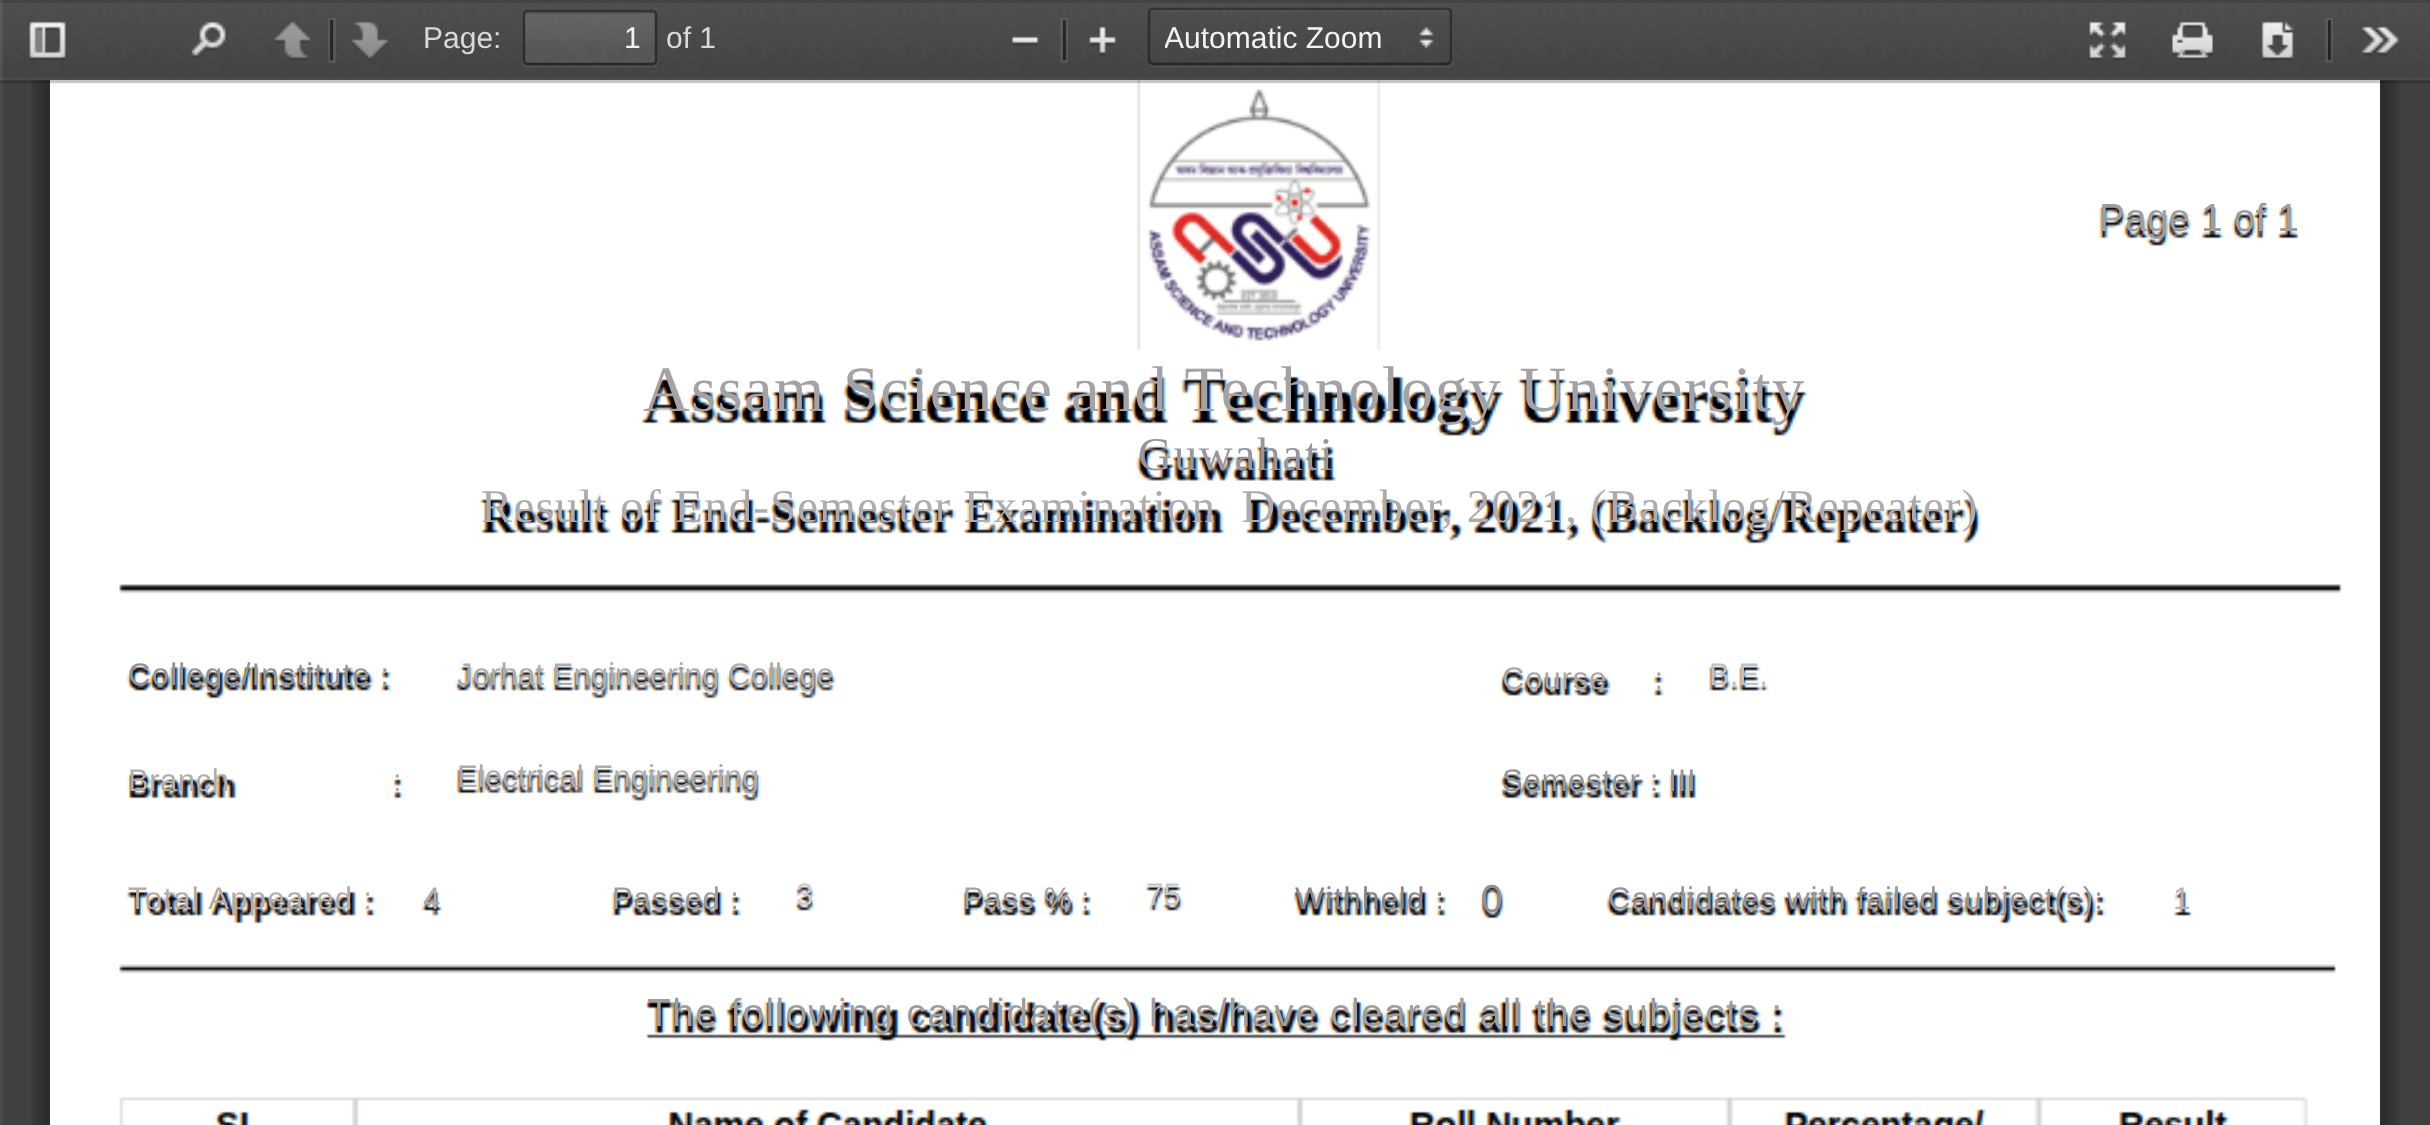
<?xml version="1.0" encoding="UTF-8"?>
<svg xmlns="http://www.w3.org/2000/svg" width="2430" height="1125">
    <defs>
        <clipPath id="clip1"><rect x="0" y="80" width="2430" height="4"/></clipPath>
        <filter id="blur1" x="-50%" y="-200%" width="200%" height="500%"><feGaussianBlur stdDeviation="1"/></filter>
        <linearGradient id="g1" gradientUnits="userSpaceOnUse" x1="590" y1="12" x2="590" y2="63"><stop offset="0" stop-color="#FFFFFF" stop-opacity="0.05"/><stop offset="1" stop-color="#FFFFFF" stop-opacity="0"/></linearGradient>
        <clipPath id="clip2"><rect x="1165" y="18" width="295" height="40"/></clipPath>
    </defs>
    <rect width="100%" height="100%" fill="#404040"/>
    <rect x="0" y="80" width="3" height="1045" fill="#4A4A4A"/>
    <image x="31" y="80" width="2368" height="1045" href="img_13.png"/>
    <image x="50" y="80" width="2330" height="1045" href="img_14.png"/>
    <g clip-path="url(#clip1)">
        <rect x="0" y="3" width="2430" height="80" fill="#000000" fill-opacity="0.1" filter="url(#blur1)"/>
    </g>
    <rect x="0" y="80" width="2430" height="3" fill="#000000" fill-opacity="0.15"/>
    <image x="0" y="0" width="2430" height="80" href="img_01.png"/>
    <rect x="0" y="78" width="2430" height="3" fill="#FFFFFF" fill-opacity="0.05"/>
    <rect x="0" y="0" width="2430" height="3" fill="#000000" fill-opacity="0.15"/>
    <rect x="0" y="0" width="3" height="80" fill="#FFFFFF" fill-opacity="0.08"/>
    <image x="29" y="21" width="37" height="39" href="img_02.png"/>
    <image x="191" y="21" width="35" height="37" href="img_03.png"/>
    <image x="274" y="22" width="37" height="38" href="img_04.png"/>
    <rect x="329.5" y="19.5" width="5" height="42" fill="none" stroke="#FFFFFF" stroke-opacity="0.08" stroke-width="3"/>
    <rect x="330" y="20" width="3" height="40" fill="#000000" fill-opacity="0.5"/>
    <image x="352" y="21" width="37" height="39" href="img_05.png"/>
    <text x="423" y="48" font-family="Liberation Sans" font-size="30" fill="#D9D9D9">Page:</text>
    <path d="M 523 62 V 63 C 523 66 525 68 528 68 H 653 C 656 68 658 66 658 63 V 18 V 16 V 60 C 658 63 655 65 652 65 H 528 C 526 65 524 64 523 62 Z" fill="#FFFFFF" fill-opacity="0.05"/>
    <rect x="525" y="13" width="130" height="50" rx="2.5" fill="#FFFFFF" fill-opacity="0.09"/>
    <rect x="525" y="13" width="130" height="28" fill="url(#g1)"/>
    <path d="M 528 15 H 652 C 654 15 655 16 655 18 V 16 C 655 14 654 13 652 13 H 528 C 526 13 525 14 525 16 V 18 C 525 16 526 15 528 15 Z" fill="#000000" fill-opacity="0.05"/>
    <path d="M 525 12.5 C 525.5 11.5 526.5 11 527.5 11 H 652.5 C 653.5 11 654.5 11.5 655 12.5" fill="none" stroke="#000000" stroke-opacity="0.32" stroke-width="2.5"/>
    <path d="M 655 12.5 C 656 13 656 14 656 15 V 60 C 656 61 656 62 655 62.5" fill="none" stroke="#000000" stroke-opacity="0.38" stroke-width="2.5"/>
    <path d="M 655 62.5 C 654.5 63.5 653.5 64 652.5 64 H 527.5 C 526.5 64 525.5 63.5 525 62.5" fill="none" stroke="#000000" stroke-opacity="0.42" stroke-width="2.5"/>
    <path d="M 525 62.5 C 524 62 524 61 524 60 V 15 C 524 14 524 13 525 12.5" fill="none" stroke="#000000" stroke-opacity="0.38" stroke-width="2.5"/>
    <text x="624" y="48" font-family="Liberation Sans" font-size="30" fill="#F2F2F2">1</text>
    <text x="666" y="48" font-family="Liberation Sans" font-size="30" fill="#D9D9D9">of 1</text>
    <image x="1011" y="36" width="28" height="10" href="img_06.png"/>
    <rect x="1061.5" y="19.5" width="5" height="42" fill="none" stroke="#FFFFFF" stroke-opacity="0.08" stroke-width="3"/>
    <rect x="1063" y="20" width="3" height="40" fill="#000000" fill-opacity="0.5"/>
    <image x="1089" y="26" width="27" height="30" href="img_07.png"/>
    <path d="M 1148 62 V 63 C 1148 66 1150 68 1153 68 H 1448 C 1451 68 1453 66 1453 63 V 15 L 1452 13 V 60 C 1452 63 1450 65 1448 65 H 1152 C 1151 65 1149 64 1148 62 Z" fill="#FFFFFF" fill-opacity="0.05"/>
    <image x="1419" y="26" width="15" height="23" href="img_08.png"/>
    <path d="M 1152 12 H 1448 C 1449 12 1450 14 1450 15 C 1450 13 1450 10 1448 10 H 1152 C 1150 11 1150 13 1150 15 C 1150 14 1151 12 1152 12 Z" fill="#FFFFFF" fill-opacity="0.05"/>
    <path d="M 1150 10 L 1152.5 9 H 1447.5 L 1450 10" fill="none" stroke="#000000" stroke-opacity="0.32" stroke-width="2.5"/>
    <path d="M 1450 10 C 1451 10.5 1451 11.5 1451 12.5 V 60 C 1451 61 1451 62 1450 62.5" fill="none" stroke="#000000" stroke-opacity="0.38" stroke-width="2.5"/>
    <path d="M 1450 62.5 L 1447.5 64 H 1152.5 L 1150 62.5" fill="none" stroke="#000000" stroke-opacity="0.42" stroke-width="2.5"/>
    <path d="M 1150 62.5 C 1149 62 1149 61 1149 60 V 12.5 C 1149 11.5 1149 10.5 1150 10" fill="none" stroke="#000000" stroke-opacity="0.38" stroke-width="2.5"/>
    <g clip-path="url(#clip2)">
        <text x="1164" y="48" font-family="Liberation Sans" font-size="30" fill="#F2F2F2">Automatic Zoom</text>
    </g>
    <image x="2089" y="21" width="37" height="39" href="img_09.png"/>
    <image x="2172" y="21" width="41" height="39" href="img_10.png"/>
    <image x="2261" y="21" width="33" height="39" href="img_11.png"/>
    <rect x="2326.5" y="19.5" width="5" height="42" fill="none" stroke="#FFFFFF" stroke-opacity="0.08" stroke-width="3"/>
    <rect x="2328" y="20" width="3" height="40" fill="#000000" fill-opacity="0.5"/>
    <image x="2361" y="26" width="39" height="30" href="img_12.png"/>
    <text x="2099" y="231" font-family="Liberation Sans" font-size="39.1" fill="#9E9E9F">Page 1 of 1</text>
    <text x="643" y="411" font-family="Liberation Serif" font-size="64.6" letter-spacing="1.35" fill="#A4A2A4">Assam Science and Technology University</text>
    <text x="1138" y="470" font-family="Liberation Serif" font-size="46.95" letter-spacing="1.75" fill="#97969B">Guwahati</text>
    <text x="481" y="522" word-spacing="-0.25" font-family="Liberation Serif" font-size="46.95" letter-spacing="1.13" fill="#AEABAE" xml:space="preserve">Result of End-Semester Examination  December, 2021, (Backlog/Repeater)</text>
    <text x="128" y="685" font-family="Liberation Sans" font-size="31.25" letter-spacing="1.1" fill="#90929A">College/Institute :</text>
    <text x="457" y="685" font-family="Liberation Sans" font-size="31.25" fill="#AEABAE">Jorhat Engineering College</text>
    <text x="1502" y="689" font-family="Liberation Sans" font-size="31.25" letter-spacing="0.75" fill="#ACA7A6" xml:space="preserve">Course     :</text>
    <text x="1709" y="685" font-family="Liberation Sans" font-size="31.25" fill="#C1C1C2">B.E.</text>
    <text x="128" y="791" font-family="Liberation Sans" font-size="31.25" letter-spacing="0.4" fill="#B4ACA5" xml:space="preserve">Branch                  :</text>
    <text x="457" y="787" font-family="Liberation Sans" font-size="31.25" fill="#AEABAE">Electrical Engineering</text>
    <text x="1502" y="791" font-family="Liberation Sans" font-size="31.25" letter-spacing="0.6" fill="#97969B">Semester : III</text>
    <text x="128" y="909" font-family="Liberation Sans" font-size="31.25" letter-spacing="1.2" fill="#B4ACA5">Total Appeared :</text>
    <text x="423" y="909" font-family="Liberation Sans" font-size="31.25" fill="#AEABAE">4</text>
    <text x="612" y="909" font-family="Liberation Sans" font-size="31.25" letter-spacing="0.75" fill="#9E9E9F">Passed :</text>
    <text x="796" y="905" font-family="Liberation Sans" font-size="31.25" fill="#CBCBCC">3</text>
    <text x="963" y="909" font-family="Liberation Sans" font-size="31.25" letter-spacing="0.5" fill="#A4A2A4">Pass % :</text>
    <text x="1146" y="905" font-family="Liberation Sans" font-size="31.25" fill="#CAC4BF">75</text>
    <text x="1295" y="909" font-family="Liberation Sans" font-size="31.25" letter-spacing="1.1" fill="#8A8589">Withheld :</text>
    <text x="1481" y="912" font-family="Liberation Sans" font-size="39.1" fill="#958D90">0</text>
    <text x="1608" y="909" font-family="Liberation Sans" font-size="31.25" letter-spacing="1.1" fill="#97969B">Candidates with failed subject(s):</text>
    <text x="2173" y="909" font-family="Liberation Sans" font-size="31.25" fill="#B4B3BD">1</text>
    <text x="647" y="1026" font-family="Liberation Sans" font-size="39.1" letter-spacing="1.3" fill="#9E9E9F">The following candidate(s) has/have cleared all the subjects :</text>
</svg>
